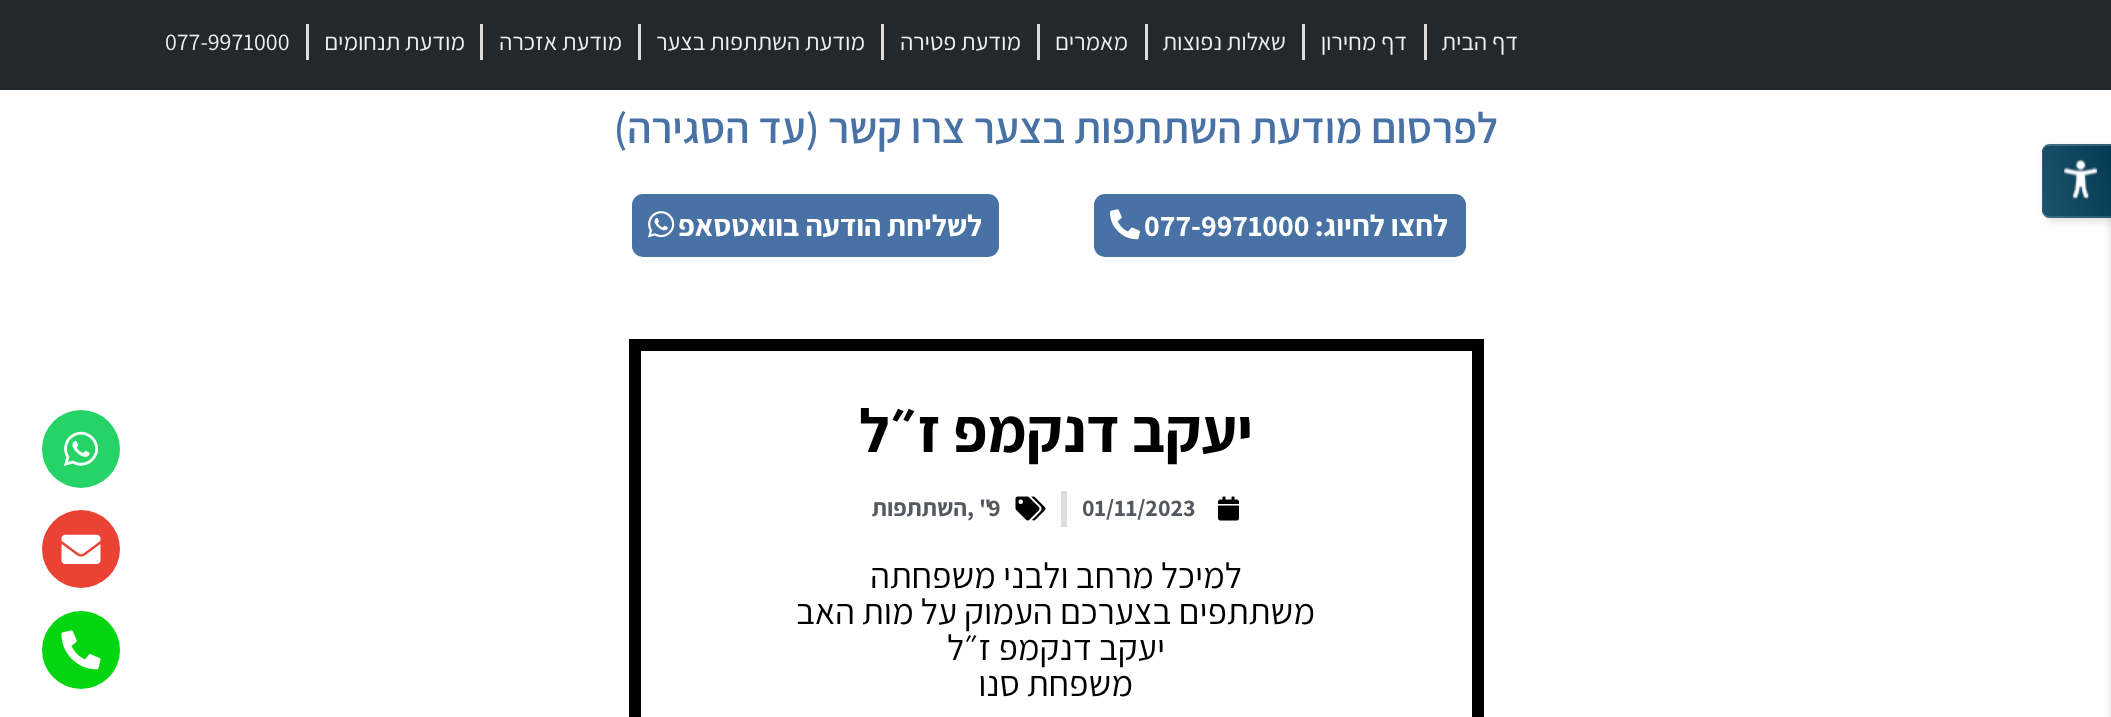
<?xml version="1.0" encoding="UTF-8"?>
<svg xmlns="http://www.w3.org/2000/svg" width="2111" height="717">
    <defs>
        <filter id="blur1" x="-50%" y="-200%" width="200%" height="500%"><feGaussianBlur stdDeviation="4"/></filter>
        <clipPath id="clip1"><path d="M 2050 144 H 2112 V 218 H 2050 C 2045.5 218 2042 214.5 2042 210 V 152 C 2042 147.5 2045.5 144 2050 144 Z"/></clipPath>
        <linearGradient id="g1" gradientUnits="userSpaceOnUse" x1="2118" y1="99" x2="2037" y2="121"><stop offset="0.01" stop-color="#000000" stop-opacity="0.35"/><stop offset="0.98" stop-color="#434343" stop-opacity="0.35"/></linearGradient>
        <linearGradient id="g2" gradientUnits="userSpaceOnUse" x1="2049" y1="170" x2="1968" y2="192"><stop offset="0.01" stop-color="#000000" stop-opacity="0.35"/><stop offset="0.98" stop-color="#434343" stop-opacity="0.35"/></linearGradient>
        <linearGradient id="g3" gradientUnits="userSpaceOnUse" x1="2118" y1="170" x2="2037" y2="192"><stop offset="0.01" stop-color="#000000" stop-opacity="0.35"/><stop offset="0.98" stop-color="#434343" stop-opacity="0.35"/></linearGradient>
        <linearGradient id="g4" gradientUnits="userSpaceOnUse" x1="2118" y1="240" x2="2037" y2="262"><stop offset="0.01" stop-color="#000000" stop-opacity="0.35"/><stop offset="0.98" stop-color="#434343" stop-opacity="0.35"/></linearGradient>
    </defs>
    <rect width="100%" height="100%" fill="#FFFFFF"/>
    <rect x="0" y="0" width="2111" height="90" fill="#23282D"/>
    <text x="1518" y="50" font-family="Assistant" font-size="24" direction="rtl" fill="#EDF0F5">דף הבית</text>
    <rect x="1424" y="24" width="3" height="36" fill="#DDDDDD"/>
    <text x="1407" y="50" font-family="Assistant" font-size="24" direction="rtl" fill="#EDF0F5">דף מחירון</text>
    <rect x="1302" y="24" width="3" height="36" fill="#DDDDDD"/>
    <text x="1286" y="50" font-family="Assistant" font-size="24" direction="rtl" fill="#EDF0F5">שאלות נפוצות</text>
    <rect x="1145" y="24" width="3" height="36" fill="#DDDDDD"/>
    <text x="1128" y="50" font-family="Assistant" font-size="24" direction="rtl" fill="#EDF0F5">מאמרים</text>
    <rect x="1037" y="24" width="3" height="36" fill="#DDDDDD"/>
    <text x="1021" y="50" font-family="Assistant" font-size="24" direction="rtl" fill="#EDF0F5">מודעת פטירה</text>
    <rect x="881" y="24" width="3" height="36" fill="#DDDDDD"/>
    <text x="865" y="50" font-family="Assistant" font-size="24" direction="rtl" fill="#EDF0F5">מודעת השתתפות בצער</text>
    <rect x="638" y="24" width="3" height="36" fill="#DDDDDD"/>
    <text x="622" y="50" font-family="Assistant" font-size="24" direction="rtl" fill="#EDF0F5">מודעת אזכרה</text>
    <rect x="480" y="24" width="3" height="36" fill="#DDDDDD"/>
    <text x="465" y="50" font-family="Assistant" font-size="24" direction="rtl" fill="#EDF0F5">מודעת תנחומים</text>
    <rect x="306" y="24" width="3" height="36" fill="#DDDDDD"/>
    <text x="165" y="50" font-family="Assistant" font-size="24" fill="#EDF0F5">077-9971000</text>
    <rect x="2046" y="147" width="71" height="74" rx="8" fill="#000000" fill-opacity="0.14" filter="url(#blur1)"/>
    <rect x="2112" y="152" width="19" height="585" rx="8" fill="#000101" fill-opacity="0.2" filter="url(#blur1)"/>
    <path d="M 2050 144 H 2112 V 218 H 2050 C 2045.5 218 2042 214.5 2042 210 V 152 C 2042 147.5 2045.5 144 2050 144 Z" fill="#095A81"/>
    <g clip-path="url(#clip1)">
        <rect x="2043" y="144" width="68" height="2" fill="url(#g1)"/>
        <rect x="2042" y="146" width="1" height="70" fill="url(#g2)"/>
        <rect x="2043" y="146" width="68" height="70" fill="url(#g3)"/>
        <rect x="2043" y="216" width="68" height="2" fill="url(#g4)"/>
    </g>
    <path d="M 2049 144 H 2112 V 218 H 2049 C 2045 218 2042 214 2042 210 V 152 C 2042 147 2045 144 2049 144 Z M 2049 146 H 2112 V 216 H 2049 C 2046 216 2043 213 2043 210 V 152 C 2043 148 2046 146 2049 146 Z" fill="#FFFFFF" fill-opacity="0.17" fill-rule="evenodd"/>
    <image x="2064" y="159" width="33" height="40" href="img_01.png"/>
    <text x="1498" y="143" font-family="Assistant" font-size="43.5" font-weight="600" direction="rtl" fill="#4872A5">לפרסום מודעת השתתפות בצער צרו קשר (עד הסגירה)</text>
    <rect x="1094" y="194" width="372" height="63" rx="11" fill="#4872A5"/>
    <text x="1448" y="236" font-family="Assistant" font-size="30" font-weight="700" direction="rtl" fill="#FFFFFF">לחצו לחיוג:</text>
    <text x="1144" y="236" font-family="Assistant" font-size="30" font-weight="700" fill="#FFFFFF">077-9971000</text>
    <image x="1110" y="209" width="30" height="31" href="img_02.png"/>
    <rect x="632" y="194" width="367" height="63" rx="11" fill="#4872A5"/>
    <text x="982" y="236" font-family="Assistant" font-size="30" font-weight="700" direction="rtl" fill="#FFFFFF">לשליחת הודעה בוואטסאפ</text>
    <image x="648" y="211" width="27" height="27" href="img_03.png"/>
    <rect x="635" y="345" width="843" height="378" fill="none" stroke="#000000" stroke-width="12"/>
    <text x="1253" y="452" font-family="Assistant" font-size="61.5" font-weight="700" direction="rtl" fill="#000000">יעקב דנקמפ ז״ל</text>
    <image x="1218" y="496" width="21" height="25" href="img_04.png"/>
    <text x="1082" y="516" font-family="Assistant" font-size="24" font-weight="700" fill="#54595F">01/11/2023</text>
    <rect x="1061" y="491" width="6" height="36" fill="#DDDDDD"/>
    <image x="1015" y="496" width="31" height="25" href="img_05.png"/>
    <text x="979" y="516" font-family="Assistant" font-size="24" font-weight="700" fill="#54595F">"</text>
    <text x="988" y="516" font-family="Assistant" font-size="24" font-weight="700" fill="#54595F">9</text>
    <text x="967" y="516" font-family="Assistant" font-size="24" font-weight="700" fill="#54595F">,</text>
    <text x="967" y="516" font-family="Assistant" font-size="24" font-weight="700" direction="rtl" fill="#54595F">השתתפות</text>
    <text x="1242" y="588" font-family="Assistant" font-size="36" direction="rtl" fill="#000000">למיכל מרחב ולבני משפחתה</text>
    <text x="1315" y="624" font-family="Assistant" font-size="36" direction="rtl" fill="#000000">משתתפים בצערכם העמוק על מות האב</text>
    <text x="1165" y="660" font-family="Assistant" font-size="36" direction="rtl" fill="#000000">יעקב דנקמפ ז״ל</text>
    <text x="1133" y="696" font-family="Assistant" font-size="36" direction="rtl" fill="#000000">משפחת סנו</text>
    <circle cx="81" cy="449" r="39" fill="#25D366"/>
    <image x="64" y="431" width="35" height="35" href="img_06.png"/>
    <circle cx="81" cy="549" r="39" fill="#EA4335"/>
    <image x="61" y="534" width="40" height="30" href="img_07.png"/>
    <circle cx="81" cy="650" r="39" fill="#02D610"/>
    <image x="61" y="630" width="40" height="40" href="img_08.png"/>
</svg>
